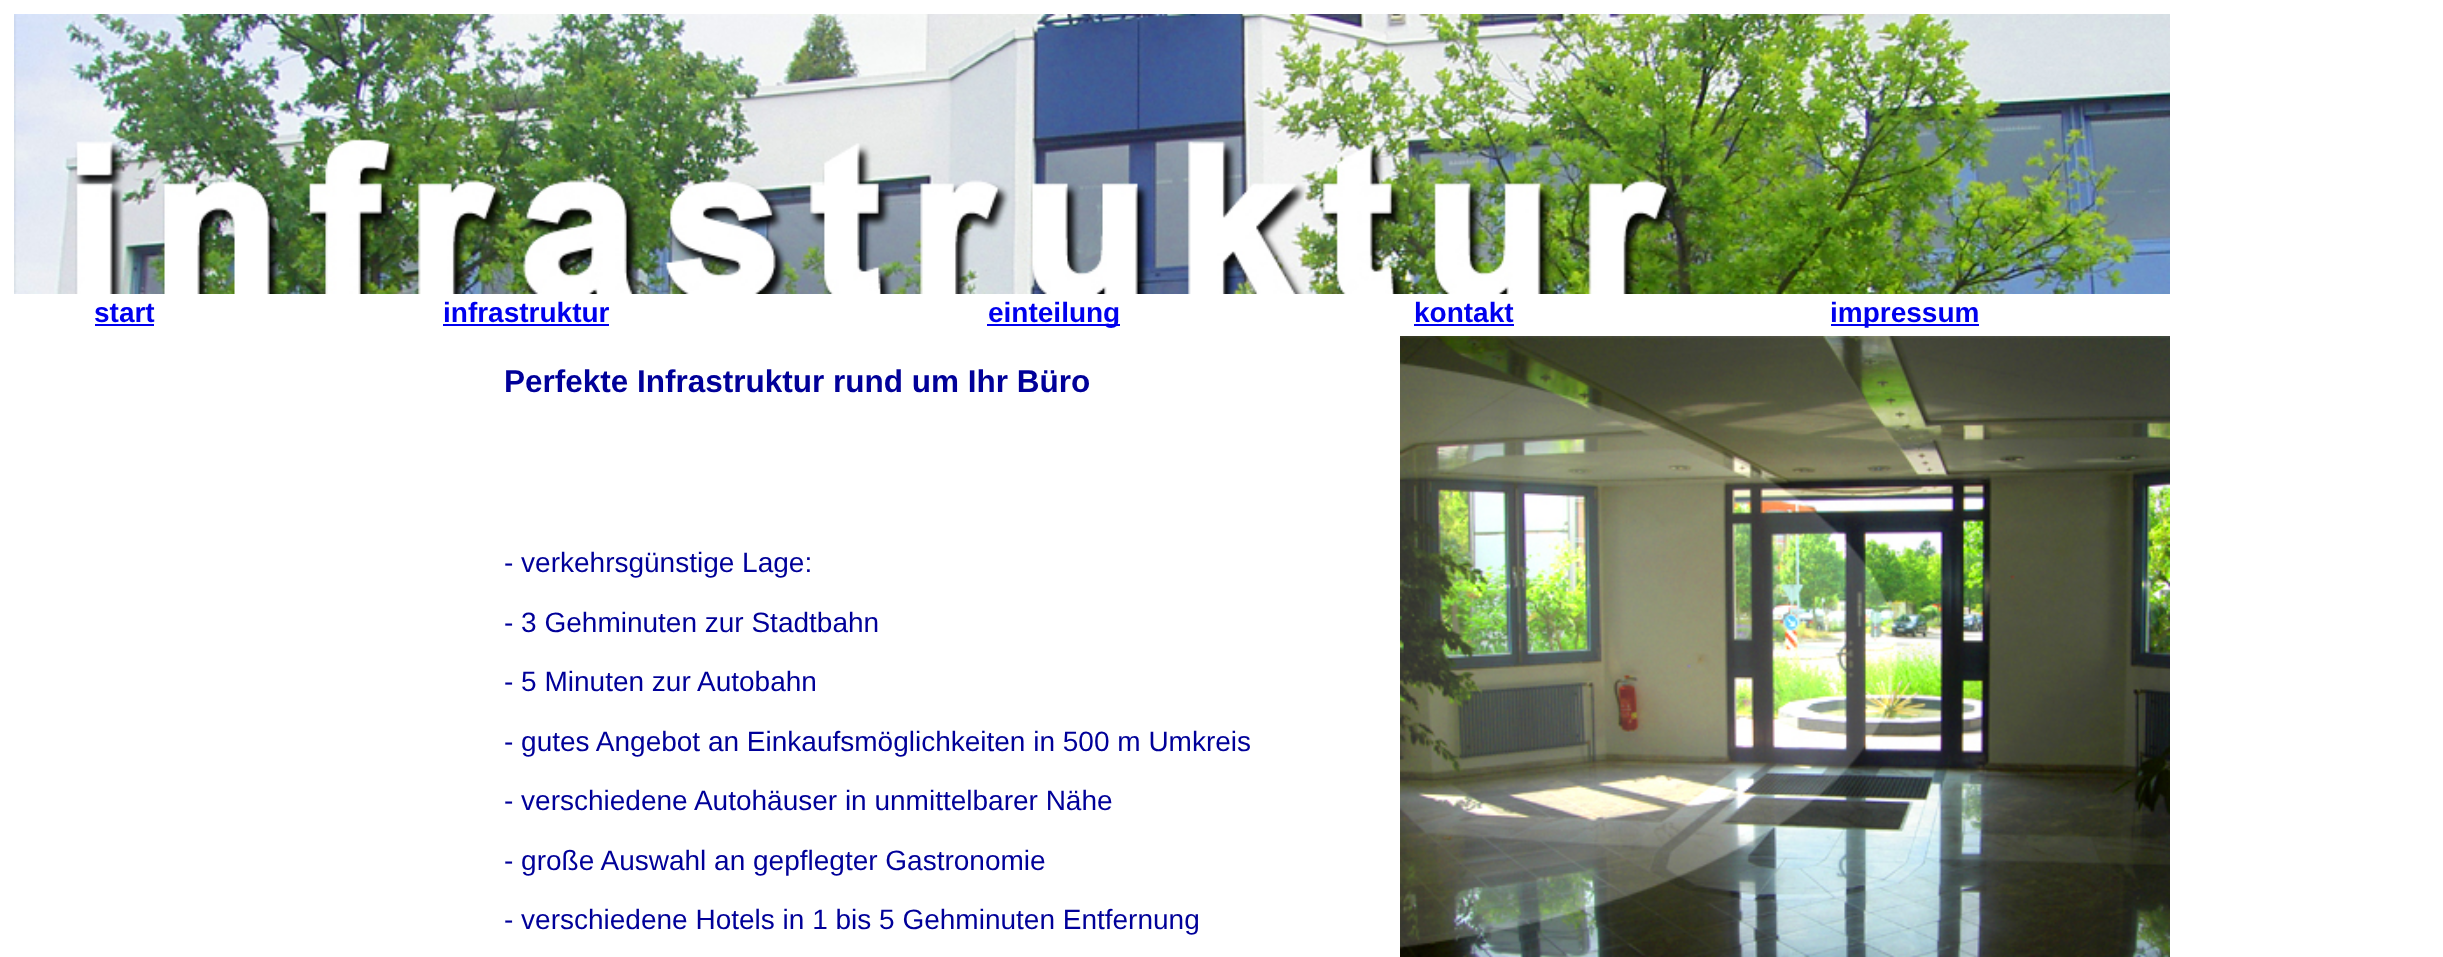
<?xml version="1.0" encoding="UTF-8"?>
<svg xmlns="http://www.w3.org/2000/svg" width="2443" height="957">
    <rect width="100%" height="100%" fill="#FFFFFF"/>
    <image x="14" y="14" width="2156" height="280" href="img_01.png"/>
    <text x="94" y="322" font-family="Liberation Sans" font-size="28" font-weight="700" fill="#0000EE">start</text>
    <rect x="95" y="324" width="59" height="2" fill="#0000EE"/>
    <text x="443" y="322" font-family="Liberation Sans" font-size="28" font-weight="700" fill="#0000EE">infrastruktur</text>
    <rect x="443" y="324" width="166" height="2" fill="#0000EE"/>
    <rect x="987" y="324" width="133" height="2" fill="#0000EE"/>
    <text x="988" y="322" font-family="Liberation Sans" font-size="28" font-weight="700" fill="#0000EE">einteilung</text>
    <text x="1414" y="322" font-family="Liberation Sans" font-size="28" font-weight="700" fill="#0000EE">kontakt</text>
    <rect x="1414" y="324" width="100" height="2" fill="#0000EE"/>
    <rect x="1831" y="324" width="148" height="2" fill="#0000EE"/>
    <text x="1830" y="322" font-family="Liberation Sans" font-size="28" font-weight="700" fill="#0000EE">impressum</text>
    <text x="504" y="392" font-family="Liberation Sans" font-size="31.5" font-weight="700" fill="#000099">Perfekte Infrastruktur rund um Ihr Büro</text>
    <text x="504" y="572" font-family="Liberation Sans" font-size="28" fill="#000099">- verkehrsgünstige Lage:</text>
    <text x="504" y="632" font-family="Liberation Sans" font-size="28" fill="#000099">- 3 Gehminuten zur Stadtbahn</text>
    <text x="504" y="691" font-family="Liberation Sans" font-size="28" fill="#000099">- 5 Minuten zur Autobahn</text>
    <text x="504" y="751" font-family="Liberation Sans" font-size="28" fill="#000099">- gutes Angebot an Einkaufsmöglichkeiten in 500 m Umkreis</text>
    <text x="504" y="810" font-family="Liberation Sans" font-size="28" fill="#000099">- verschiedene Autohäuser in unmittelbarer Nähe</text>
    <text x="504" y="870" font-family="Liberation Sans" font-size="28" fill="#000099">- große Auswahl an gepflegter Gastronomie</text>
    <text x="504" y="929" font-family="Liberation Sans" font-size="28" fill="#000099">- verschiedene Hotels in 1 bis 5 Gehminuten Entfernung</text>
    <image x="1400" y="336" width="770" height="621" href="img_02.png"/>
</svg>
